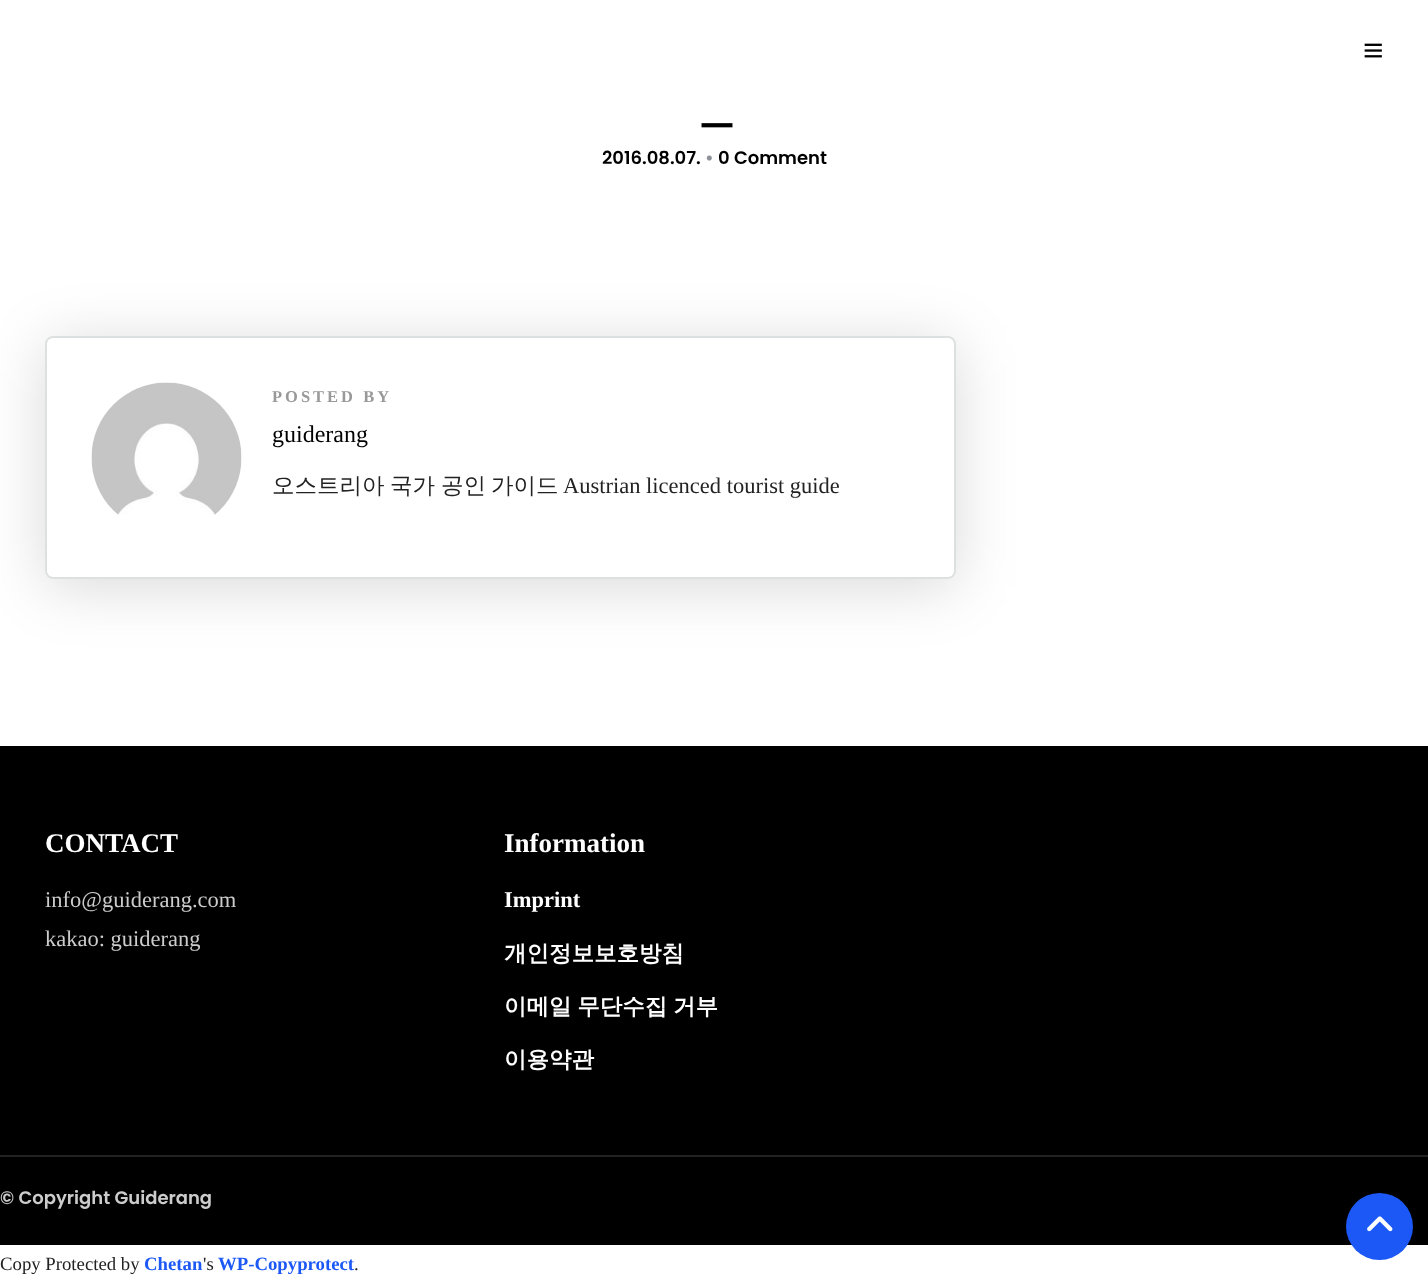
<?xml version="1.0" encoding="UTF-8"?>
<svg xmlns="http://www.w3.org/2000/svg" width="1428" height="1282">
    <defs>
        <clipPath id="clip1"><path d="M 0 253 H 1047 V 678 H 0 Z M 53 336 H 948 C 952.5 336 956 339.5 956 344 V 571 C 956 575.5 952.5 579 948 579 H 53 C 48.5 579 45 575.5 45 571 V 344 C 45 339.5 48.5 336 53 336 Z" clip-rule="evenodd"/></clipPath>
        <filter id="blur1" x="-50%" y="-200%" width="200%" height="500%"><feGaussianBlur stdDeviation="30"/></filter>
    </defs>
    <rect width="100%" height="100%" fill="#FFFFFF"/>
    <image x="1364" y="43" width="18" height="15" href="img_01.png"/>
    <text x="702" y="119" font-family="Liberation Serif" font-size="60" font-weight="700" fill="#000000">_</text>
    <text x="602" y="164" font-family="Poppins" font-size="18" font-weight="600" fill="#000000">2016.08.07.</text>
    <text x="705" y="164" font-family="Poppins" font-size="18" font-weight="600" fill="#8D9199">•</text>
    <text x="718" y="164" font-family="Poppins" font-size="18" font-weight="600" fill="#000000">0 Comment</text>
    <g clip-path="url(#clip1)">
        <rect x="45" y="344" width="911" height="243" rx="8" fill="#000000" fill-opacity="0.15" filter="url(#blur1)"/>
    </g>
    <rect x="46" y="337" width="909" height="241" rx="7" fill="none" stroke="#DCE0E0" stroke-width="2"/>
    <image x="91" y="382" width="151" height="133" href="img_02.png"/>
    <text x="272" y="402" font-family="Liberation Serif" font-size="16.5" font-weight="700" letter-spacing="3" fill="#999999">POSTED BY</text>
    <text x="272" y="442" font-family="Liberation Serif" font-size="24" fill="#000000">guiderang</text>
    <text x="272" y="493" font-family="WenQuanYi Zen Hei" font-size="22.5" font-weight="500" fill="#222222">오스트리아</text>
    <text x="390" y="493" font-family="WenQuanYi Zen Hei" font-size="22.5" font-weight="500" fill="#222222">국가</text>
    <text x="441" y="493" font-family="WenQuanYi Zen Hei" font-size="22.5" font-weight="500" fill="#222222">공인</text>
    <text x="491" y="493" font-family="WenQuanYi Zen Hei" font-size="22.5" font-weight="500" fill="#222222">가이드</text>
    <text x="563" y="493" font-family="Liberation Serif" font-size="22.5" fill="#222222">Austrian licenced tourist guide</text>
    <rect x="0" y="746" width="1428" height="409" fill="#000000"/>
    <text x="45" y="852" font-family="Liberation Serif" font-size="27" font-weight="700" fill="#FFFFFF">CONTACT</text>
    <text font-family="Liberation Serif" font-size="22.5" fill="#CCCCCC">
        <tspan x="45" y="907">info@guiderang.com</tspan>
        <tspan x="45" y="946">kakao: guiderang</tspan>
    </text>
    <text x="504" y="852" font-family="Liberation Serif" font-size="27" font-weight="700" fill="#FFFFFF">Information</text>
    <text x="504" y="907" font-family="Liberation Serif" font-size="22.5" font-weight="700" fill="#FFFFFF">Imprint</text>
    <text x="504" y="961" font-family="WenQuanYi Zen Hei" font-size="22.5" font-weight="700" fill="#FFFFFF">개인정보보호방침</text>
    <text x="504" y="1014" word-spacing="-1" font-family="WenQuanYi Zen Hei" font-size="22.5" font-weight="700" fill="#FFFFFF">이메일 무단수집 거부</text>
    <text x="504" y="1067" font-family="WenQuanYi Zen Hei" font-size="22.5" font-weight="700" fill="#FFFFFF">이용약관</text>
    <rect x="0" y="1157" width="1428" height="88" fill="#000000"/>
    <rect x="0" y="1155" width="1428" height="2" fill="#222222"/>
    <text x="0" y="1204" font-family="Poppins" font-size="18" font-weight="600" fill="#CCCCCC">© Copyright Guiderang</text>
    <circle cx="1379.5" cy="1226.5" r="33.5" fill="#1C58F6"/>
    <image x="1367" y="1216" width="26" height="16" href="img_03.png"/>
    <text x="0" y="1270" font-family="Liberation Serif" font-size="18.75" fill="#222222">Copy Protected by</text>
    <text x="144" y="1270" font-family="Liberation Serif" font-size="18.75" font-weight="700" fill="#1C58F6">Chetan</text>
    <text x="203" y="1270" font-family="Liberation Serif" font-size="18.75" fill="#222222">'s</text>
    <text x="218" y="1270" font-family="Liberation Serif" font-size="18.75" font-weight="700" fill="#1C58F6">WP-Copyprotect</text>
    <text x="354" y="1270" font-family="Liberation Serif" font-size="18.75" fill="#222222">.</text>
</svg>
